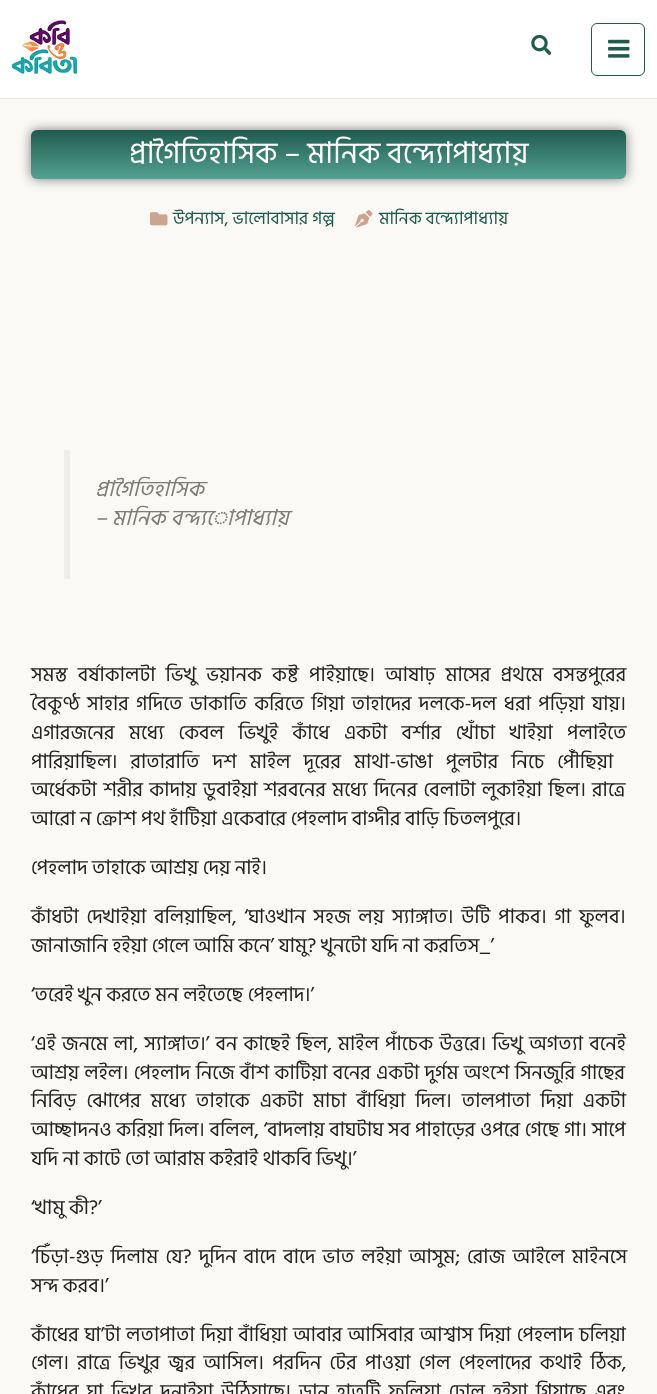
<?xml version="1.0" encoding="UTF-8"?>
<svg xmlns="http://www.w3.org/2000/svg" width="657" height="1394">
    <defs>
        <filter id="blur1" x="-50%" y="-200%" width="200%" height="500%"><feGaussianBlur stdDeviation="6"/></filter>
        <linearGradient id="g1" gradientUnits="userSpaceOnUse" x1="329" y1="130" x2="329" y2="179"><stop offset="0" stop-color="#205B4F"/><stop offset="1" stop-color="#53A292"/></linearGradient>
    </defs>
    <rect width="100%" height="100%" fill="#FAF9F6"/>
    <rect x="0" y="0" width="657" height="98" fill="#FFFFFF"/>
    <rect x="0" y="98" width="657" height="1" fill="#EAEAEA"/>
    <image x="12" y="20" width="66" height="54" href="img_01.png"/>
    <image x="531" y="34" width="20" height="22" href="img_02.png"/>
    <rect x="591.5" y="23.5" width="53" height="52" rx="5.5" fill="none" stroke="#205B4F"/>
    <image x="608" y="39" width="22" height="19" href="img_03.png"/>
    <rect x="31" y="130" width="595" height="49" rx="6" fill="#000000" fill-opacity="0.5" filter="url(#blur1)"/>
    <rect x="31" y="130" width="595" height="49" rx="6" fill="url(#g1)"/>
    <text x="129" y="163" font-family="Hind Siliguri" font-size="30" fill="#FFFFFF">প্রাগৈতিহাসিক – মানিক বন্দ্যোপাধ্যায়</text>
    <image x="150" y="212" width="18" height="14" href="img_04.png"/>
    <text x="173" y="224" font-family="Hind Siliguri" font-size="17.5" fill="#205B4F">উপন্যাস, ভালোবাসার গল্প</text>
    <image x="355" y="210" width="18" height="18" href="img_05.png"/>
    <text x="379" y="224" font-family="Hind Siliguri" font-size="17.5" fill="#205B4F">মানিক বন্দ্যোপাধ্যায়</text>
    <rect x="64" y="450" width="6" height="129" fill="#EEEDEA"/>
    <text font-family="Hind Siliguri" font-size="22" font-style="italic" fill="#7F7C76">
        <tspan x="95" y="496">প্রাগৈতিহাসিক</tspan>
        <tspan x="95" y="525">– মানিক বন্দ্যোপাধ্যায়</tspan>
    </text>
    <text font-family="Hind Siliguri" font-size="20" fill="#222222">
        <tspan x="31" y="681" word-spacing="5.5">সমস্ত বর্ষাকালটা ভিখু ভয়ানক কষ্ট পাইয়াছে। আষাঢ় মাসের প্রথমে বসন্তপুরের</tspan>
        <tspan x="31" y="710" word-spacing="2.75">বৈকুণ্ঠ সাহার গদিতে ডাকাতি করিতে গিয়া তাহাদের দলকে-দল ধরা পড়িয়া যায়।</tspan>
        <tspan x="31" y="739" word-spacing="9.75">এগারজনের মধ্যে কেবল ভিখুই কাঁধে একটা বর্শার খোঁচা খাইয়া পলাইতে</tspan>
        <tspan x="31" y="768" word-spacing="8.5">পারিয়াছিল। রাতারাতি দশ মাইল দূরের মাথা-ভাঙা পুলটার নিচে পেঁৗছিয়া</tspan>
        <tspan x="31" y="796" word-spacing="1.75">অর্ধেকটা শরীর কাদায় ডুবাইয়া শরবনের মধ্যে দিনের বেলাটা লুকাইয়া ছিল। রাত্রে</tspan>
        <tspan x="31" y="825">আরো ন ক্রোশ পথ হাঁটিয়া একেবারে পেহলাদ বাগ্দীর বাড়ি চিতলপুরে।</tspan>
    </text>
    <text x="31" y="874" font-family="Hind Siliguri" font-size="20" fill="#222222">পেহলাদ তাহাকে আশ্রয় দেয় নাই।</text>
    <text font-family="Hind Siliguri" font-size="20" fill="#222222">
        <tspan x="31" y="923" word-spacing="3.25">কাঁধটা দেখাইয়া বলিয়াছিল, ‘ঘাওখান সহজ লয় স্যাঙ্গাত। উটি পাকব। গা ফুলব।</tspan>
        <tspan x="31" y="952">জানাজানি হইয়া গেলে আমি কনে’ যামু? খুনটো যদি না করতিস_’</tspan>
    </text>
    <text x="31" y="1001" font-family="Hind Siliguri" font-size="20" fill="#222222">‘তরেই খুন করতে মন লইতেছে পেহলাদ।’</text>
    <text font-family="Hind Siliguri" font-size="20" fill="#222222">
        <tspan x="31" y="1050" word-spacing="1.6">‘এই জনমে লা, স্যাঙ্গাত।’ বন কাছেই ছিল, মাইল পাঁচেক উত্তরে। ভিখু অগত্যা বনেই</tspan>
        <tspan x="31" y="1079" word-spacing="0.75">আশ্রয় লইল। পেহলাদ নিজে বাঁশ কাটিয়া বনের একটা দুর্গম অংশে সিনজুরি গাছের</tspan>
        <tspan x="31" y="1107" word-spacing="5.5">নিবিড় ঝোপের মধ্যে তাহাকে একটা মাচা বাঁধিয়া দিল। তালপাতা দিয়া একটা</tspan>
        <tspan x="31" y="1136" word-spacing="0.25">আচ্ছাদনও করিয়া দিল। বলিল, ‘বাদলায় বাঘটাঘ সব পাহাড়ের ওপরে গেছে গা। সাপে</tspan>
        <tspan x="31" y="1165">যদি না কাটে তো আরাম কইরাই থাকবি ভিখু।’</tspan>
    </text>
    <text x="31" y="1214" font-family="Hind Siliguri" font-size="20" fill="#222222">‘খামু কী?’</text>
    <text font-family="Hind Siliguri" font-size="20" fill="#222222">
        <tspan x="31" y="1263" word-spacing="2.75">‘চিঁড়া-গুড় দিলাম যে? দুদিন বাদে বাদে ভাত লইয়া আসুম; রোজ আইলে মাইনসে</tspan>
        <tspan x="31" y="1292">সন্দ করব।’</tspan>
    </text>
    <text font-family="Hind Siliguri" font-size="20" fill="#222222">
        <tspan x="31" y="1341" word-spacing="1.1">কাঁধের ঘা’টা লতাপাতা দিয়া বাঁধিয়া আবার আসিবার আশ্বাস দিয়া পেহলাদ চলিয়া</tspan>
        <tspan x="31" y="1369" word-spacing="3.75">গেল। রাত্রে ভিখুর জ্বর আসিল। পরদিন টের পাওয়া গেল পেহলাদের কথাই ঠিক,</tspan>
        <tspan x="31" y="1398" word-spacing="3.5">কাঁধের ঘা ভিখুর দুনাইয়া উঠিয়াছে। ডান হাতটি ফুলিয়া ঢোল হইয়া গিয়াছে এবং</tspan>
    </text>
</svg>
